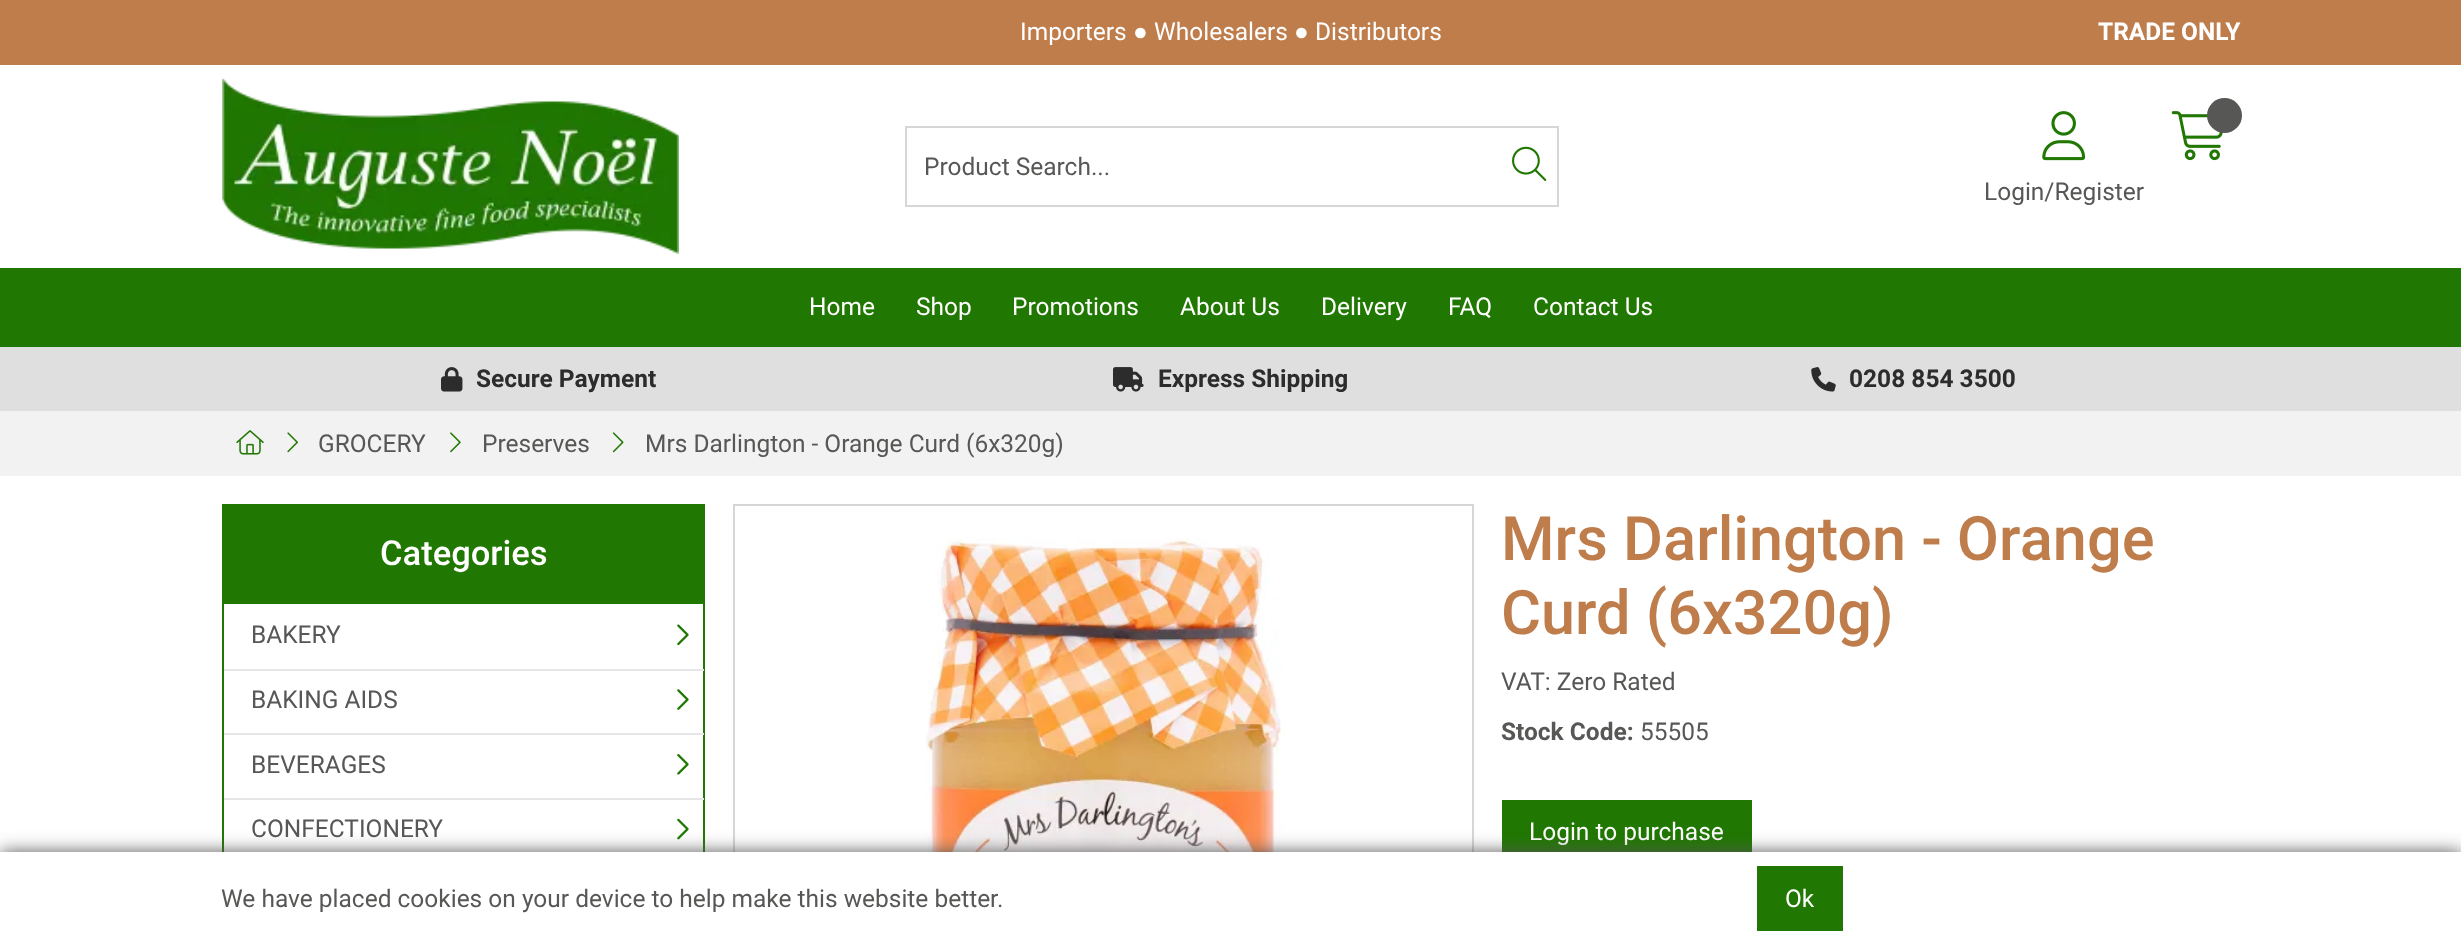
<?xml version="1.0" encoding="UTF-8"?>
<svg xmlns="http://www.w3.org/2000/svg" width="2461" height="945">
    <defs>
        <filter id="blur1" x="-50%" y="-200%" width="200%" height="500%"><feGaussianBlur stdDeviation="9"/></filter>
    </defs>
    <rect width="100%" height="100%" fill="#FFFFFF"/>
    <rect x="0" y="0" width="2461" height="65" fill="#BF7D4C"/>
    <text x="1020" y="40" font-family="Roboto" font-size="24.5" fill="#FFFFFF">Importers</text>
    <text x="1133" y="40" font-family="Liberation Sans" font-size="24.5" fill="#FFFFFF">●</text>
    <text x="1154" y="40" font-family="Roboto" font-size="24.5" fill="#FFFFFF">Wholesalers</text>
    <text x="1294" y="40" font-family="Liberation Sans" font-size="24.5" fill="#FFFFFF">●</text>
    <text x="1315" y="40" font-family="Roboto" font-size="24.5" fill="#FFFFFF">Distributors</text>
    <text x="2098" y="40" font-family="Roboto" font-size="24.5" font-weight="700" fill="#FFFFFF">TRADE ONLY</text>
    <image x="222" y="78" width="457" height="176" href="img_01.png"/>
    <rect x="906" y="127" width="652" height="79" fill="none" stroke="#D6D6D6" stroke-width="2"/>
    <text x="924" y="175" font-family="Roboto" font-size="24.5" fill="#575756">Product Search...</text>
    <image x="1512" y="146" width="35" height="35" href="img_02.png"/>
    <image x="2171" y="111" width="52" height="50" href="img_03.png"/>
    <circle cx="2224.5" cy="115.5" r="17.5" fill="#575756"/>
    <image x="2042" y="111" width="44" height="50" href="img_04.png"/>
    <text x="1984" y="200" font-family="Roboto" font-size="24.5" fill="#575756">Login/Register</text>
    <rect x="0" y="268" width="2461" height="79" fill="#207701"/>
    <text x="809" y="315" font-family="Roboto" font-size="24.5" fill="#FFFFFF">Home</text>
    <text x="916" y="315" font-family="Roboto" font-size="24.5" fill="#FFFFFF">Shop</text>
    <text x="1012" y="315" font-family="Roboto" font-size="24.5" fill="#FFFFFF">Promotions</text>
    <text x="1180" y="315" font-family="Roboto" font-size="24.5" fill="#FFFFFF">About Us</text>
    <text x="1321" y="315" font-family="Roboto" font-size="24.5" fill="#FFFFFF">Delivery</text>
    <text x="1448" y="315" font-family="Roboto" font-size="24.5" fill="#FFFFFF">FAQ</text>
    <text x="1533" y="315" font-family="Roboto" font-size="24.5" fill="#FFFFFF">Contact Us</text>
    <rect x="0" y="347" width="2461" height="64" fill="#DFDFDF"/>
    <image x="441" y="367" width="22" height="25" href="img_05.png"/>
    <text x="476" y="387" font-family="Roboto" font-size="24.5" font-weight="700" fill="#2C2C2C">Secure Payment</text>
    <image x="1113" y="367" width="31" height="25" href="img_06.png"/>
    <text x="1158" y="387" font-family="Roboto" font-size="24.5" font-weight="700" fill="#2C2C2C">Express Shipping</text>
    <image x="1811" y="367" width="25" height="25" href="img_07.png"/>
    <text x="1849" y="387" font-family="Roboto" font-size="24.5" font-weight="700" fill="#2C2C2C">0208 854 3500</text>
    <rect x="0" y="411" width="2461" height="65" fill="#F2F2F2"/>
    <image x="236" y="430" width="28" height="25" href="img_08.png"/>
    <image x="287" y="432" width="11" height="21" href="img_09.png"/>
    <text x="318" y="452" font-family="Roboto" font-size="24.5" fill="#575756">GROCERY</text>
    <image x="450" y="432" width="11" height="21" href="img_10.png"/>
    <text x="482" y="452" font-family="Roboto" font-size="24.5" fill="#575756">Preserves</text>
    <image x="612" y="432" width="12" height="21" href="img_11.png"/>
    <text x="645" y="452" font-family="Roboto" font-size="24.5" fill="#575756">Mrs Darlington - Orange Curd (6x320g)</text>
    <rect x="223" y="505" width="481" height="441" fill="none" stroke="#207701" stroke-width="2"/>
    <rect x="224" y="506" width="479" height="98" fill="#207701"/>
    <text x="380" y="565" font-family="Roboto" font-size="34.5" font-weight="500" fill="#FFFFFF">Categories</text>
    <text x="251" y="643" font-family="Roboto" font-size="24.5" fill="#575756">BAKERY</text>
    <image x="677" y="624" width="12" height="22" href="img_12.png"/>
    <rect x="224" y="669" width="480" height="2" fill="#E6E6E6"/>
    <text x="251" y="708" font-family="Roboto" font-size="24.5" fill="#575756">BAKING AIDS</text>
    <image x="677" y="689" width="12" height="21" href="img_13.png"/>
    <rect x="224" y="733" width="480" height="2" fill="#E6E6E6"/>
    <text x="251" y="773" font-family="Roboto" font-size="24.5" fill="#575756">BEVERAGES</text>
    <image x="677" y="754" width="12" height="21" href="img_14.png"/>
    <rect x="224" y="798" width="480" height="2" fill="#E6E6E6"/>
    <text x="251" y="837" font-family="Roboto" font-size="24.5" fill="#575756">CONFECTIONERY</text>
    <image x="677" y="818" width="12" height="22" href="img_15.png"/>
    <rect x="734" y="505" width="739" height="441" fill="none" stroke="#D6D6D6" stroke-width="2"/>
    <image x="926" y="538" width="359" height="314" href="img_16.png"/>
    <text font-family="Roboto" font-size="61.25" font-weight="500" fill="#BF7D4C">
        <tspan x="1501" y="560">Mrs Darlington - Orange</tspan>
        <tspan x="1501" y="634">Curd (6x320g)</tspan>
    </text>
    <text x="1501" y="690" font-family="Roboto" font-size="24.5" fill="#575756">VAT: Zero Rated</text>
    <text x="1501" y="740" font-family="Roboto" font-size="24.5" font-weight="700" fill="#575756">Stock Code:</text>
    <text x="1640" y="740" font-family="Roboto" font-size="24.5" fill="#575756">55505</text>
    <rect x="1502" y="800" width="250" height="52" fill="#207701"/>
    <text x="1529" y="840" font-family="Roboto" font-size="24.5" fill="#FFFFFF">Login to purchase</text>
    <rect x="0" y="852" width="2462" height="93" fill="#575756" filter="url(#blur1)"/>
    <rect x="0" y="852" width="2461" height="93" fill="#FFFFFF"/>
    <text x="221" y="907" font-family="Roboto" font-size="24.5" fill="#575756">We have placed cookies on your device to help make this website better.</text>
    <rect x="1757" y="866" width="86" height="65" fill="#207701"/>
    <text x="1785" y="907" font-family="Roboto" font-size="24.5" fill="#FFFFFF">Ok</text>
</svg>
